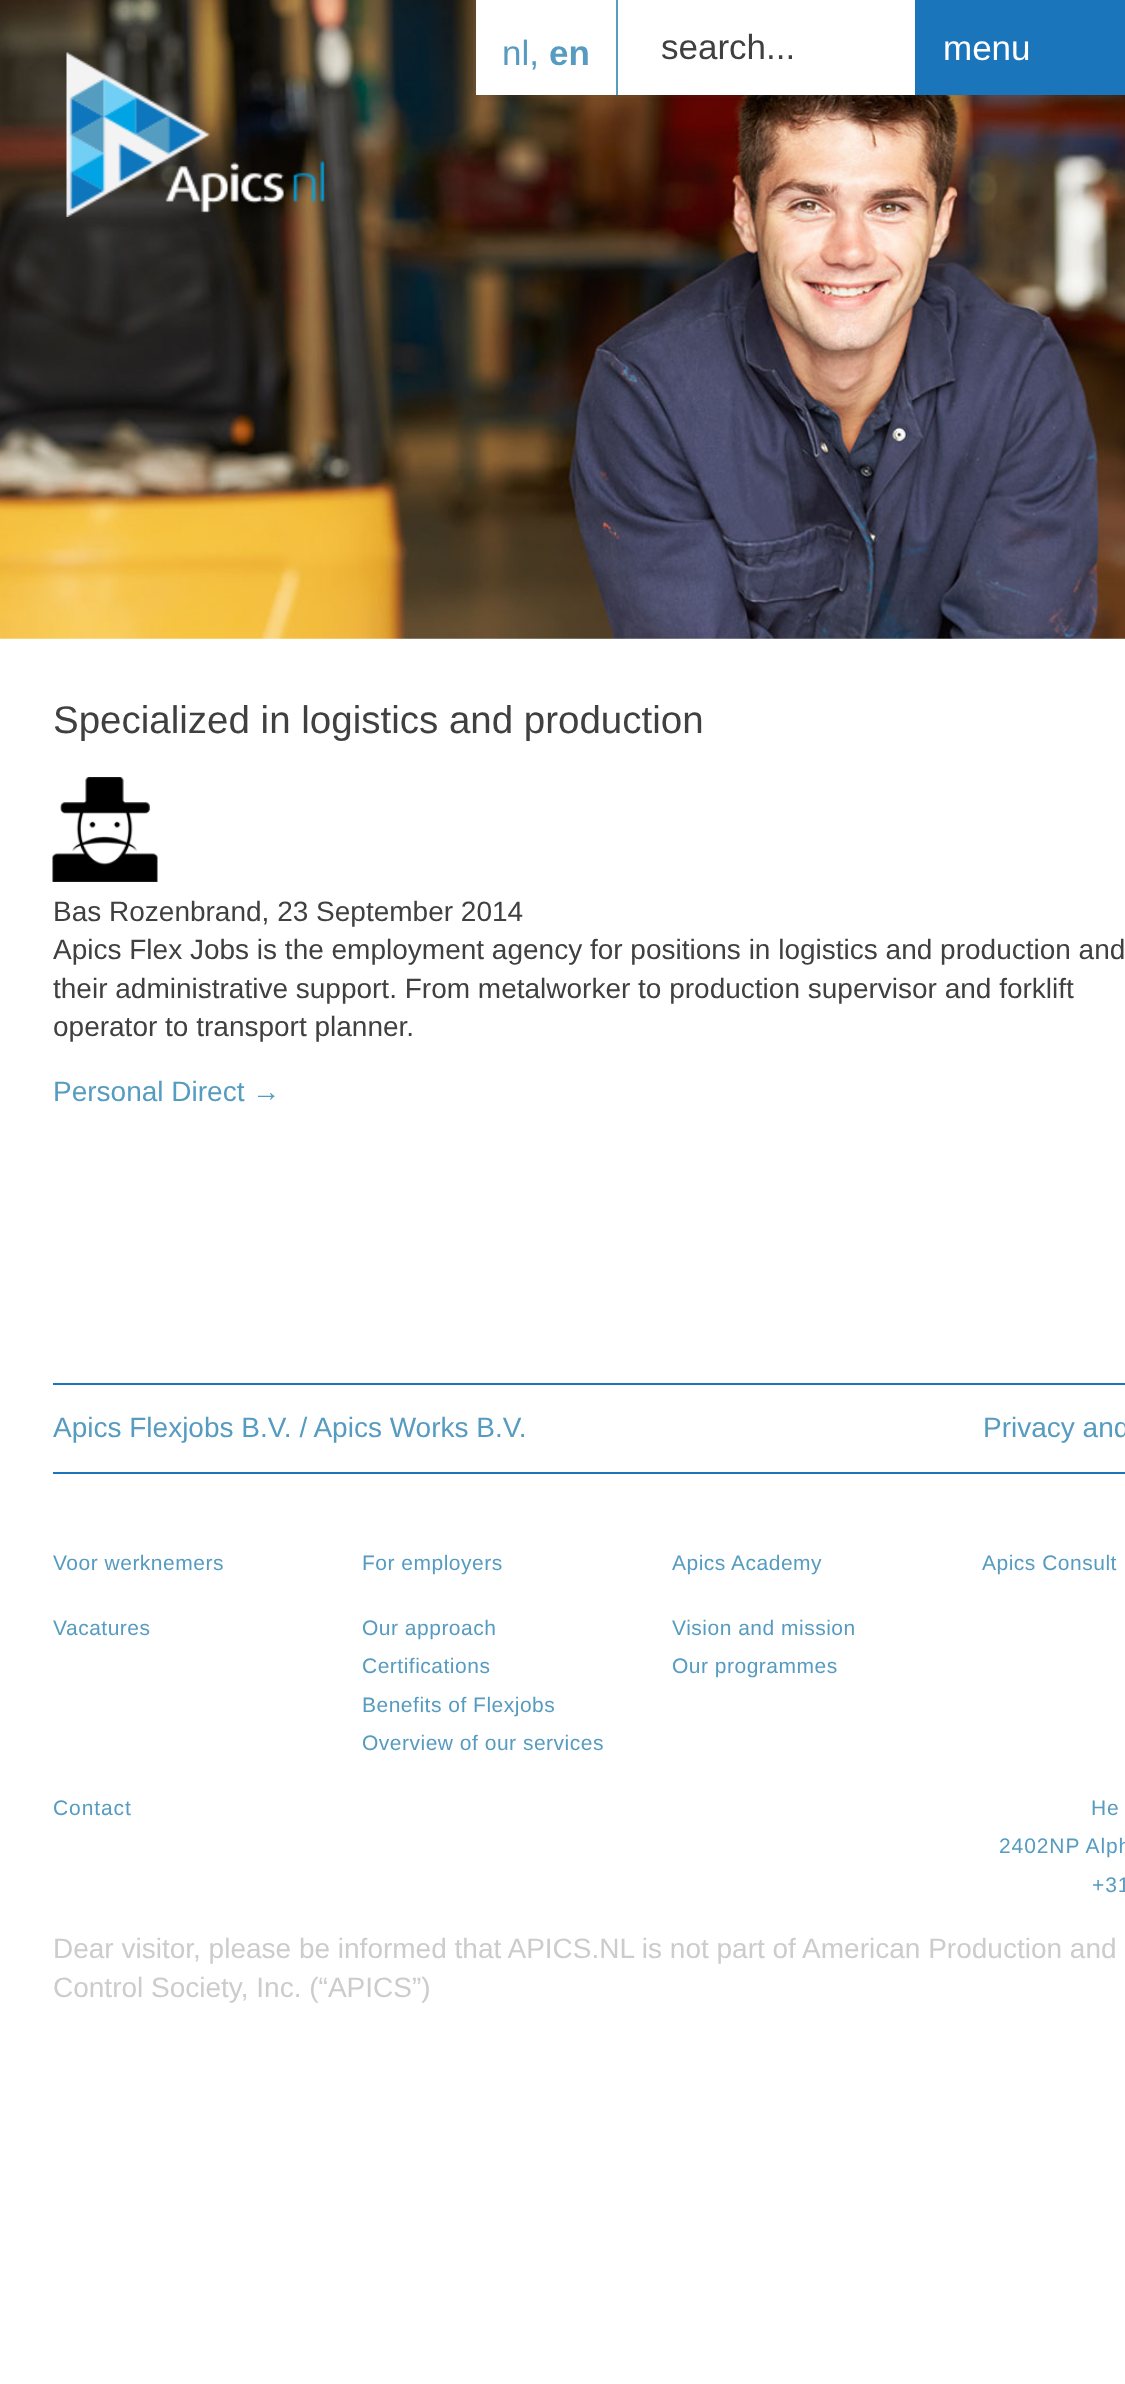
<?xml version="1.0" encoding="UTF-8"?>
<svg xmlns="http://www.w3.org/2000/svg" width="1125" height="2384">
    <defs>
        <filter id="blur1" x="-50%" y="-200%" width="200%" height="500%"><feGaussianBlur stdDeviation="4.5"/></filter>
    </defs>
    <rect width="100%" height="100%" fill="#FFFFFF"/>
    <image x="0" y="0" width="1125" height="639" href="img_01.png"/>
    <rect x="476" y="0" width="649" height="95" fill="#323232" fill-opacity="0.25" filter="url(#blur1)"/>
    <rect x="476" y="0" width="439" height="95" fill="#FFFFFF"/>
    <rect x="616" y="0" width="2" height="95" fill="#569BC0"/>
    <text x="502" y="65" font-family="Liberation Sans" font-size="35" fill="#569BC0">nl,</text>
    <text x="549" y="65" font-family="Liberation Sans" font-size="35" font-weight="700" fill="#569BC0">en</text>
    <text x="661" y="59" font-family="Liberation Sans" font-size="35" fill="#404041">search...</text>
    <rect x="915" y="0" width="210" height="95" fill="#1B75BA"/>
    <text x="943" y="60" font-family="Liberation Sans" font-size="35" fill="#FFFFFF">menu</text>
    <image x="66" y="52" width="259" height="165" href="img_02.png"/>
    <text x="53" y="733" font-family="Liberation Sans" font-size="38.5" fill="#404041">Specialized in logistics and production</text>
    <image x="52" y="777" width="106" height="105" href="img_03.png"/>
    <text font-family="Liberation Sans" font-size="28" fill="#404041">
        <tspan x="53" y="921">Bas Rozenbrand, 23 September 2014</tspan>
        <tspan x="53" y="959">Apics Flex Jobs is the employment agency for positions in logistics and production and</tspan>
        <tspan x="53" y="998">their administrative support. From metalworker to production supervisor and forklift</tspan>
        <tspan x="53" y="1036">operator to transport planner.</tspan>
    </text>
    <text x="53" y="1101" font-family="Liberation Sans" font-size="28" fill="#569BC0">Personal Direct →</text>
    <rect x="53" y="1383" width="1072" height="2" fill="#1B75BA"/>
    <rect x="53" y="1472" width="1072" height="2" fill="#1B75BA"/>
    <text x="53" y="1437" font-family="Liberation Sans" font-size="28" fill="#569BC0">Apics Flexjobs B.V. / Apics Works B.V.</text>
    <text x="983" y="1437" font-family="Liberation Sans" font-size="28" fill="#569BC0">Privacy and</text>
    <text x="53" y="1570" font-family="Liberation Sans" font-size="21" letter-spacing="0.5" fill="#569BC0">Voor werknemers</text>
    <text x="53" y="1635" font-family="Liberation Sans" font-size="21" letter-spacing="0.5" fill="#569BC0">Vacatures</text>
    <text x="362" y="1570" font-family="Liberation Sans" font-size="21" letter-spacing="0.5" fill="#569BC0">For employers</text>
    <text font-family="Liberation Sans" font-size="21" letter-spacing="0.5" fill="#569BC0">
        <tspan x="362" y="1635">Our approach</tspan>
        <tspan x="362" y="1673">Certifications</tspan>
        <tspan x="362" y="1712">Benefits of Flexjobs</tspan>
        <tspan x="362" y="1750">Overview of our services</tspan>
    </text>
    <text x="672" y="1570" font-family="Liberation Sans" font-size="21" letter-spacing="0.5" fill="#569BC0">Apics Academy</text>
    <text font-family="Liberation Sans" font-size="21" letter-spacing="0.5" fill="#569BC0">
        <tspan x="672" y="1635">Vision and mission</tspan>
        <tspan x="672" y="1673">Our programmes</tspan>
    </text>
    <text x="982" y="1570" font-family="Liberation Sans" font-size="21" letter-spacing="0.5" fill="#569BC0">Apics Consult</text>
    <text x="53" y="1815" font-family="Liberation Sans" font-size="21" letter-spacing="0.9" fill="#569BC0">Contact</text>
    <text x="1091" y="1815" font-family="Liberation Sans" font-size="21" letter-spacing="0.9" fill="#569BC0">He</text>
    <text x="999" y="1853" font-family="Liberation Sans" font-size="21" letter-spacing="0.9" fill="#569BC0">2402NP Alph</text>
    <text x="1092" y="1892" font-family="Liberation Sans" font-size="21" letter-spacing="0.9" fill="#569BC0">+31</text>
    <text font-family="Liberation Sans" font-size="28" fill="#CCCCCC">
        <tspan x="53" y="1958">Dear visitor, please be informed that APICS.NL is not part of American Production and</tspan>
        <tspan x="53" y="1997">Control Society, Inc. (“APICS”)</tspan>
    </text>
</svg>
